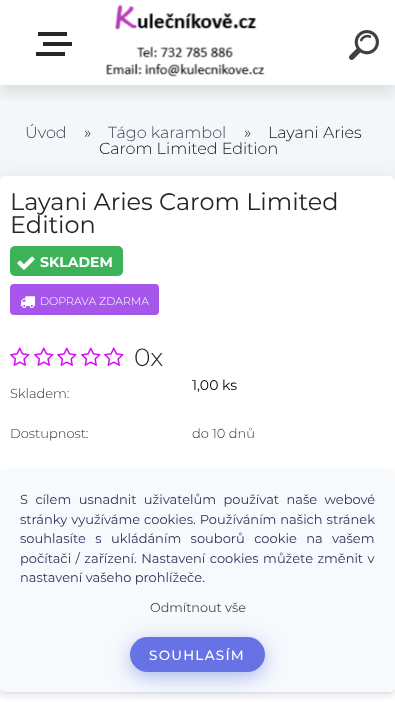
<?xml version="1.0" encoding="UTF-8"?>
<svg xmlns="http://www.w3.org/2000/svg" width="395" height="702">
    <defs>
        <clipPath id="clip1"><rect x="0" y="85" width="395" height="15"/></clipPath>
        <filter id="blur1" x="-50%" y="-200%" width="200%" height="500%"><feGaussianBlur stdDeviation="8"/></filter>
        <filter id="blur2" x="-50%" y="-200%" width="200%" height="500%"><feGaussianBlur stdDeviation="10"/></filter>
        <clipPath id="clip2"><path d="M 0 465 H 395 V 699 H 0 Z M 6 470 H 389 C 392.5 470 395 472.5 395 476 V 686 C 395 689.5 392.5 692 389 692 H 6 C 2.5 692 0 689.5 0 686 V 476 C 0 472.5 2.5 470 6 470 Z" clip-rule="evenodd"/></clipPath>
        <filter id="blur3" x="-50%" y="-200%" width="200%" height="500%"><feGaussianBlur stdDeviation="1.5"/></filter>
        <clipPath id="clip3"><path d="M 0 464 H 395 V 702 H 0 Z M 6 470 H 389 C 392.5 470 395 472.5 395 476 V 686 C 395 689.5 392.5 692 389 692 H 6 C 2.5 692 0 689.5 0 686 V 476 C 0 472.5 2.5 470 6 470 Z" clip-rule="evenodd"/></clipPath>
        <filter id="blur4" x="-50%" y="-200%" width="200%" height="500%"><feGaussianBlur stdDeviation="3"/></filter>
    </defs>
    <rect width="100%" height="100%" fill="#FFFFFF"/>
    <rect x="0" y="85" width="395" height="97" fill="#F4F7F9"/>
    <g clip-path="url(#clip1)">
        <rect x="0" y="8" width="395" height="85" fill="#000000" fill-opacity="0.1" filter="url(#blur1)"/>
    </g>
    <rect x="38" y="32" width="29" height="4" fill="#262626"/>
    <rect x="43" y="42" width="29" height="4" fill="#262626"/>
    <rect x="36" y="52" width="29" height="4" fill="#262626"/>
    <image x="106" y="4" width="159" height="73" href="img_01.png"/>
    <image x="349" y="30" width="30" height="30" href="img_02.png"/>
    <text x="25" y="138" font-family="Montserrat" font-size="16" font-weight="300" fill="#3F3D59">Úvod</text>
    <text x="84" y="138" font-family="Montserrat" font-size="16" font-weight="300" fill="#101010">»</text>
    <text x="108" y="138" font-family="Montserrat" font-size="16" font-weight="300" fill="#3F3D59">Tágo karambol</text>
    <text x="244" y="138" font-family="Montserrat" font-size="16" font-weight="300" fill="#101010">»</text>
    <text x="268" y="138" font-family="Montserrat" font-size="16" font-weight="300" fill="#101010">Layani Aries</text>
    <text x="99" y="154" font-family="Montserrat" font-size="16" font-weight="300" fill="#101010">Carom Limited Edition</text>
    <rect x="0" y="178" width="395" height="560" rx="6" fill="#32325D" fill-opacity="0.1" filter="url(#blur2)"/>
    <rect x="0" y="176" width="395" height="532" rx="6" fill="#FFFFFF"/>
    <text font-family="Montserrat" font-size="24" fill="#252527">
        <tspan x="10" y="210">Layani Aries Carom Limited</tspan>
        <tspan x="10" y="233">Edition</tspan>
    </text>
    <rect x="10" y="246" width="113" height="30" rx="5" fill="#3CB359"/>
    <image x="17" y="256" width="18" height="14" href="img_03.png"/>
    <text x="40" y="267" font-family="Montserrat" font-size="14" font-weight="700" fill="#FFFFFF">SKLADEM</text>
    <rect x="10" y="284" width="149" height="31" rx="4" fill="#A756EC"/>
    <image x="20" y="296" width="15" height="12" href="img_04.png"/>
    <text x="40" y="305" font-family="Montserrat" font-size="11" font-weight="300" fill="#FFFFFF">DOPRAVA ZDARMA</text>
    <image x="10" y="347" width="20" height="19" href="img_05.png"/>
    <image x="34" y="347" width="20" height="19" href="img_05.png"/>
    <image x="57" y="347" width="20" height="19" href="img_05.png"/>
    <image x="81" y="347" width="20" height="19" href="img_05.png"/>
    <image x="104" y="347" width="20" height="19" href="img_05.png"/>
    <text x="134" y="366" font-family="Montserrat" font-size="25" font-weight="300" fill="#212121">0x</text>
    <text x="10" y="398" font-family="Montserrat" font-size="13" font-weight="300" fill="#2F2F2F">Skladem:</text>
    <text x="192" y="390" font-family="Montserrat" font-size="14" fill="#000000">1,00 ks</text>
    <text x="10" y="438" font-family="Montserrat" font-size="13" font-weight="300" fill="#2F2F2F">Dostupnost:</text>
    <text x="192" y="438" font-family="Montserrat" font-size="13" font-weight="300" fill="#2F2F2F">do 10 dnů</text>
    <rect x="192.5" y="505.5" width="179" height="27" rx="3.5" fill="none" stroke="#FBFBFB"/>
    <path d="M 357 517 H 365 L 361 522 Z" fill="#F9F9F9"/>
    <rect x="192.5" y="559.5" width="179" height="27" rx="3.5" fill="none" stroke="#FBFBFB"/>
    <path d="M 357 571 H 365 L 361 576 Z" fill="#F9F9F9"/>
    <rect x="192.5" y="613.5" width="179" height="27" rx="3.5" fill="none" stroke="#FBFBFB"/>
    <path d="M 357 625 H 365 L 361 630 Z" fill="#F9F9F9"/>
    <g clip-path="url(#clip2)">
        <rect x="0" y="471" width="395" height="222" rx="6" fill="#000000" fill-opacity="0.08" filter="url(#blur3)"/>
    </g>
    <g clip-path="url(#clip3)">
        <rect x="0" y="474" width="395" height="222" rx="6" fill="#32325D" fill-opacity="0.11" filter="url(#blur4)"/>
    </g>
    <rect x="0" y="470" width="395" height="222" rx="6" fill="#F6F9FC" fill-opacity="0.9"/>
    <text font-family="Montserrat" font-size="13" fill="#32325D">
        <tspan x="20" y="504" word-spacing="4">S cílem usnadnit uživatelům používat naše webové</tspan>
        <tspan x="20" y="524" word-spacing="0.5">stránky využíváme cookies. Používáním našich stránek</tspan>
        <tspan x="20" y="543" word-spacing="6">souhlasíte s ukládáním souborů cookie na vašem</tspan>
        <tspan x="20" y="563" word-spacing="1">počítači / zařízení. Nastavení cookies můžete změnit v</tspan>
        <tspan x="20" y="582">nastavení vašeho prohlížeče.</tspan>
    </text>
    <rect x="130" y="642" width="135" height="35" rx="17.5" fill="#3A54D6" fill-opacity="0.4" filter="url(#blur2)"/>
    <text x="150" y="612" font-family="Montserrat" font-size="12.75" fill="#4A4B4C">Odmítnout vše</text>
    <rect x="130" y="637" width="135" height="35" rx="17.5" fill="#6772E5"/>
    <text x="149" y="660" font-family="Montserrat" font-size="13.5" font-weight="500" letter-spacing="1.25" fill="#FFFFFF">SOUHLASÍM</text>
</svg>
